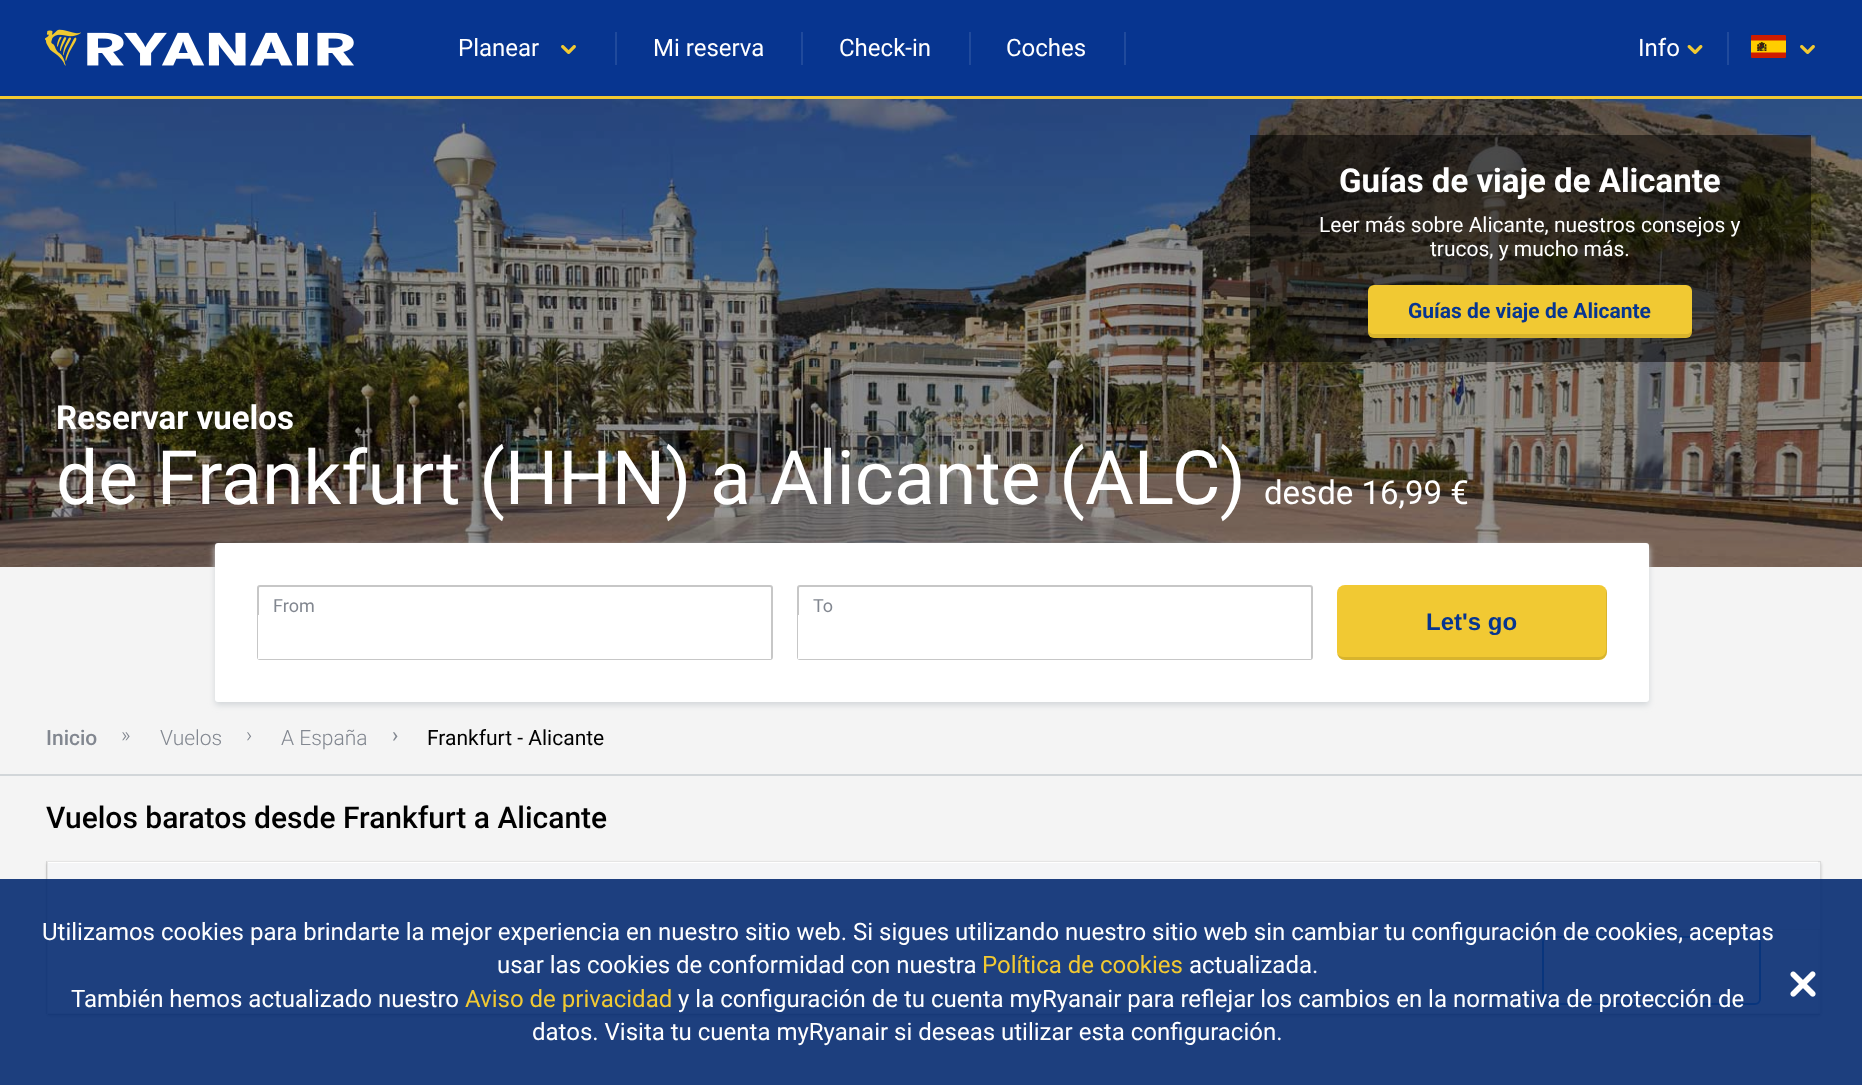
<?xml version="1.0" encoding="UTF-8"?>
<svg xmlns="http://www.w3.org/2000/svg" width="1862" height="1085">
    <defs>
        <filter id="blur1" x="-50%" y="-200%" width="200%" height="500%"><feGaussianBlur stdDeviation="3"/></filter>
        <clipPath id="clip1"><path d="M 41 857 H 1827 V 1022 H 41 Z M 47 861 H 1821 V 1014 H 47 Z" clip-rule="evenodd"/></clipPath>
        <filter id="blur2" x="-50%" y="-200%" width="200%" height="500%"><feGaussianBlur stdDeviation="1.5"/></filter>
    </defs>
    <rect width="100%" height="100%" fill="#F4F4F4"/>
    <rect x="0" y="0" width="1862" height="96" fill="#073590"/>
    <rect x="0" y="96" width="1862" height="3" fill="#F1C933"/>
    <image x="45" y="29" width="309" height="37" href="img_01.png"/>
    <text x="458" y="56" font-family="Roboto" font-size="24" fill="#FFFFFF">Planear</text>
    <image x="561" y="45" width="15" height="9" href="img_02.png"/>
    <rect x="615" y="32" width="2" height="33" fill="#204A9C"/>
    <text x="653" y="56" font-family="Roboto" font-size="24" fill="#FFFFFF">Mi reserva</text>
    <rect x="801" y="32" width="2" height="33" fill="#204A9C"/>
    <text x="839" y="56" font-family="Roboto" font-size="24" fill="#FFFFFF">Check-in</text>
    <rect x="969" y="32" width="2" height="33" fill="#204A9C"/>
    <text x="1006" y="56" font-family="Roboto" font-size="24" fill="#FFFFFF">Coches</text>
    <rect x="1124" y="32" width="2" height="33" fill="#204A9C"/>
    <text x="1638" y="56" font-family="Roboto" font-size="24" fill="#FFFFFF">Info</text>
    <image x="1687" y="45" width="16" height="9" href="img_03.png"/>
    <rect x="1727" y="32" width="2" height="33" fill="#204A9C"/>
    <image x="1751" y="35" width="35" height="23" href="img_04.png"/>
    <rect x="1750" y="34" width="37" height="25" rx="2" fill="none" stroke="#073590" stroke-width="2"/>
    <image x="1800" y="45" width="15" height="9" href="img_02.png"/>
    <image x="0" y="99" width="1862" height="468" href="img_05.png"/>
    <rect x="1250" y="135" width="561" height="227" fill="#000000" fill-opacity="0.5"/>
    <text x="1339" y="192" font-family="Roboto" font-size="33" font-weight="700" fill="#FFFFFF">Guías de viaje de Alicante</text>
    <text x="1319" y="232" font-family="Roboto" font-size="21" fill="#FFFFFF">Leer más sobre Alicante, nuestros consejos y</text>
    <text x="1430" y="256" font-family="Roboto" font-size="21" fill="#FFFFFF">trucos, y mucho más.</text>
    <rect x="1368" y="285" width="324" height="53" rx="6" fill="#F1C933"/>
    <path d="M 1368 328 V 332 C 1368 335 1371 338 1374 338 H 1686 C 1689 338 1692 335 1692 332 V 328 C 1692 332 1689 334 1686 334 H 1374 C 1371 334 1368 332 1368 328 Z" fill="#000000" fill-opacity="0.1"/>
    <text x="1408" y="318" font-family="Roboto" font-size="21" font-weight="700" fill="#073590">Guías de viaje de Alicante</text>
    <text x="56" y="429" font-family="Roboto" font-size="33" font-weight="700" fill="#FFFFFF">Reservar vuelos</text>
    <text x="56" y="504" font-family="Roboto" font-size="75" fill="#FFFFFF">de Frankfurt (HHN) a Alicante (ALC)</text>
    <text x="1264" y="504" font-family="Roboto" font-size="33" fill="#FFFFFF">desde 16,99 €</text>
    <rect x="215" y="546" width="1434" height="159" rx="3" fill="#D2D6D9" filter="url(#blur1)"/>
    <rect x="215" y="543" width="1434" height="159" rx="3" fill="#FFFFFF"/>
    <rect x="258" y="586" width="514" height="73" rx="2" fill="none" stroke="#C7C7C7" stroke-width="2"/>
    <text x="273" y="612" font-family="Roboto" font-size="18" fill="#828790">From</text>
    <rect x="258" y="615" width="513" height="44" fill="#FFFFFF"/>
    <rect x="798" y="586" width="514" height="73" rx="2" fill="none" stroke="#C7C7C7" stroke-width="2"/>
    <text x="813" y="612" font-family="Roboto" font-size="18" fill="#828790">To</text>
    <rect x="798" y="615" width="513" height="44" fill="#FFFFFF"/>
    <rect x="1337" y="585" width="270" height="75" rx="8" fill="#F1C933"/>
    <path d="M 1337 654 C 1338 657 1341 660 1345 660 H 1599 C 1603 660 1607 656 1607 652 V 593 C 1607 592 1607 590 1606 589 V 640 C 1606 646 1608 657 1599 657 H 1344 C 1341 657 1339 656 1337 654 Z" fill="#000000" fill-opacity="0.1"/>
    <text x="1426" y="630" font-family="Liberation Sans" font-size="24" font-weight="700" fill="#073590">Let's go</text>
    <rect x="0" y="774" width="1862" height="2" fill="#D2D6D9"/>
    <text x="46" y="745" font-family="Roboto" font-size="21" font-weight="500" fill="#828790">Inicio</text>
    <text x="121" y="742" font-family="Roboto" font-size="21" font-weight="300" fill="#828790">»</text>
    <text x="160" y="745" font-family="Roboto" font-size="21" font-weight="300" fill="#828790">Vuelos</text>
    <text x="246" y="742" font-family="Roboto" font-size="21" font-weight="300" fill="#828790">›</text>
    <text x="281" y="745" font-family="Roboto" font-size="21" font-weight="300" fill="#828790">A España</text>
    <text x="392" y="742" font-family="Roboto" font-size="21" fill="#828790">›</text>
    <text x="427" y="745" font-family="Roboto" font-size="21" fill="#000000">Frankfurt - Alicante</text>
    <rect x="47" y="861" width="1771" height="153" fill="#FFFFFF"/>
    <text x="46" y="828" font-family="Roboto" font-size="30" font-weight="500" fill="#000000">Vuelos baratos desde Frankfurt a Alicante</text>
    <g clip-path="url(#clip1)">
        <rect x="47" y="863" width="1774" height="153" fill="#000000" fill-opacity="0.2" filter="url(#blur2)"/>
    </g>
    <path d="M 46 861 H 1821 L 1820 862 H 48 Z" fill="#000000" fill-opacity="0.1"/>
    <path d="M 1821 861 V 1014 H 1820 V 862 Z" fill="#000000" fill-opacity="0.1"/>
    <path d="M 46 1014 V 861 L 48 862 V 1014 Z" fill="#000000" fill-opacity="0.1"/>
    <path d="M 48 928 V 930 H 1820 V 864 V 928 Z" fill="#000000" fill-opacity="0.1"/>
    <rect x="48" y="863" width="1772" height="66" fill="#F4F5F7"/>
    <rect x="48" y="1013" width="422" height="2" fill="#000000" fill-opacity="0.1"/>
    <rect x="470" y="1013" width="376" height="2" fill="#000000" fill-opacity="0.1"/>
    <rect x="846" y="1013" width="176" height="2" fill="#000000" fill-opacity="0.1"/>
    <rect x="1022" y="1013" width="258" height="2" fill="#000000" fill-opacity="0.1"/>
    <rect x="1280" y="1013" width="259" height="2" fill="#000000" fill-opacity="0.1"/>
    <rect x="1539" y="1013" width="281" height="2" fill="#000000" fill-opacity="0.1"/>
    <rect x="1543" y="937" width="217" height="67" rx="5" fill="none" stroke="#2091EB" stroke-width="2"/>
    <rect x="0" y="879" width="1862" height="206" fill="#062B71" fill-opacity="0.9"/>
    <text x="42" y="940" font-family="Roboto" font-size="24" fill="#FFFFFF">Utilizamos cookies para brindarte la mejor experiencia en nuestro sitio web. Si sigues utilizando nuestro sitio web sin cambiar tu configuración de cookies, aceptas</text>
    <text x="497" y="973" font-family="Roboto" font-size="24" fill="#FFFFFF">usar las cookies de conformidad con nuestra</text>
    <text x="982" y="973" font-family="Roboto" font-size="24" fill="#F1C933">Política de cookies</text>
    <text x="1189" y="973" font-family="Roboto" font-size="24" fill="#FFFFFF">actualizada.</text>
    <text x="71" y="1007" font-family="Roboto" font-size="24" fill="#FFFFFF">También hemos actualizado nuestro</text>
    <text x="465" y="1007" font-family="Roboto" font-size="24" fill="#F1C933">Aviso de privacidad</text>
    <text x="678" y="1007" font-family="Roboto" font-size="24" fill="#FFFFFF">y la configuración de tu cuenta myRyanair para reflejar los cambios en la normativa de protección de</text>
    <text x="532" y="1040" font-family="Roboto" font-size="24" fill="#FFFFFF">datos. Visita tu cuenta myRyanair si deseas utilizar esta configuración.</text>
    <image x="1790" y="971" width="26" height="26" href="img_06.png"/>
</svg>
